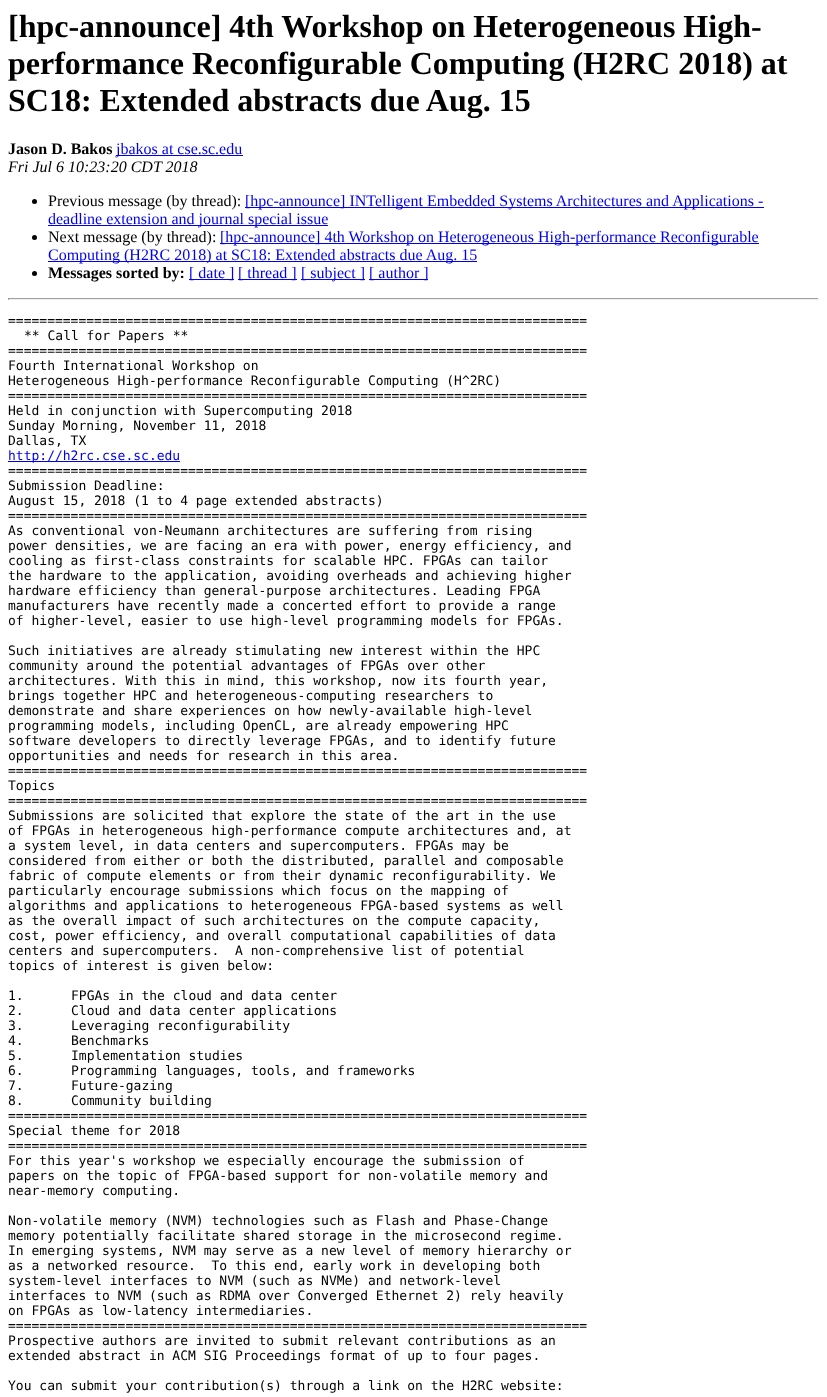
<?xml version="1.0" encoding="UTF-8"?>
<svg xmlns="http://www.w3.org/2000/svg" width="827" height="1397">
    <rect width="100%" height="100%" fill="#FFFFFF"/>
    <text font-family="Liberation Serif" font-size="32" font-weight="700" fill="#000000">
        <tspan x="8" y="37">[hpc-announce] 4th Workshop on Heterogeneous High-</tspan>
        <tspan x="8" y="74">performance Reconfigurable Computing (H2RC 2018) at</tspan>
        <tspan x="8" y="111">SC18: Extended abstracts due Aug. 15</tspan>
    </text>
    <text x="8" y="154" font-family="Liberation Serif" font-size="16" font-weight="700" fill="#000000">Jason D. Bakos</text>
    <rect x="116" y="155" width="127" height="1" fill="#0000EE"/>
    <text x="116" y="154" font-family="Liberation Serif" font-size="16" fill="#0000EE">jbakos at cse.sc.edu</text>
    <text x="8" y="172" font-family="Liberation Serif" font-size="16" font-style="italic" fill="#000000">Fri Jul 6 10:23:20 CDT 2018</text>
    <circle cx="34.5" cy="201.5" r="2.5" fill="#000000"/>
    <text x="48" y="206" font-family="Liberation Serif" font-size="16" fill="#000000">Previous message (by thread):</text>
    <rect x="245" y="207" width="519" height="1" fill="#0000EE"/>
    <text x="245" y="206" font-family="Liberation Serif" font-size="16" fill="#0000EE">[hpc-announce] INTelligent Embedded Systems Architectures and Applications -</text>
    <rect x="48" y="225" width="280" height="1" fill="#0000EE"/>
    <text x="48" y="224" font-family="Liberation Serif" font-size="16" fill="#0000EE">deadline extension and journal special issue</text>
    <circle cx="34.5" cy="237.5" r="2.5" fill="#000000"/>
    <text x="48" y="242" font-family="Liberation Serif" font-size="16" fill="#000000">Next message (by thread):</text>
    <rect x="220" y="243" width="539" height="1" fill="#0000EE"/>
    <text x="220" y="242" font-family="Liberation Serif" font-size="16" fill="#0000EE">[hpc-announce] 4th Workshop on Heterogeneous High-performance Reconfigurable</text>
    <rect x="48" y="261" width="429" height="1" fill="#0000EE"/>
    <text x="48" y="260" font-family="Liberation Serif" font-size="16" fill="#0000EE">Computing (H2RC 2018) at SC18: Extended abstracts due Aug. 15</text>
    <circle cx="34.5" cy="273.5" r="2.5" fill="#000000"/>
    <text x="48" y="278" font-family="Liberation Serif" font-size="16" font-weight="700" fill="#000000">Messages sorted by:</text>
    <rect x="189" y="279" width="45" height="1" fill="#0000EE"/>
    <text x="189" y="278" font-family="Liberation Serif" font-size="16" fill="#0000EE">[ date ]</text>
    <rect x="238" y="279" width="59" height="1" fill="#0000EE"/>
    <text x="238" y="278" font-family="Liberation Serif" font-size="16" fill="#0000EE">[ thread ]</text>
    <rect x="301" y="279" width="64" height="1" fill="#0000EE"/>
    <text x="301" y="278" font-family="Liberation Serif" font-size="16" fill="#0000EE">[ subject ]</text>
    <rect x="369" y="279" width="59" height="1" fill="#0000EE"/>
    <text x="369" y="278" font-family="Liberation Serif" font-size="16" fill="#0000EE">[ author ]</text>
    <rect x="8" y="298" width="811" height="1" fill="#9F9F9F"/>
    <rect x="818" y="298" width="1" height="2" fill="#EEEEEE"/>
    <rect x="8" y="299" width="811" height="1" fill="#EEEEEE"/>
    <rect x="8" y="298" width="1" height="2" fill="#9F9F9F"/>
    <text x="8" y="325" font-family="DejaVu Sans Mono" font-size="13" fill="#000000">==========================================================================</text>
    <text x="24" y="340" font-family="DejaVu Sans Mono" font-size="13" fill="#000000">** Call for Papers **</text>
    <text font-family="DejaVu Sans Mono" font-size="13" fill="#000000">
        <tspan x="8" y="355">==========================================================================</tspan>
        <tspan x="8" y="370">Fourth International Workshop on</tspan>
        <tspan x="8" y="385">Heterogeneous High-performance Reconfigurable Computing (H^2RC)</tspan>
        <tspan x="8" y="400">==========================================================================</tspan>
        <tspan x="8" y="415">Held in conjunction with Supercomputing 2018</tspan>
        <tspan x="8" y="430">Sunday Morning, November 11, 2018</tspan>
        <tspan x="8" y="445">Dallas, TX</tspan>
    </text>
    <rect x="8" y="461" width="172" height="1" fill="#0000EE"/>
    <text x="8" y="460" font-family="DejaVu Sans Mono" font-size="13" fill="#0000EE">http://h2rc.cse.sc.edu</text>
    <text font-family="DejaVu Sans Mono" font-size="13" fill="#000000">
        <tspan x="8" y="475">==========================================================================</tspan>
        <tspan x="8" y="490">Submission Deadline:</tspan>
        <tspan x="8" y="505">August 15, 2018 (1 to 4 page extended abstracts)</tspan>
        <tspan x="8" y="520">==========================================================================</tspan>
        <tspan x="8" y="535">As conventional von-Neumann architectures are suffering from rising</tspan>
        <tspan x="8" y="550">power densities, we are facing an era with power, energy efficiency, and</tspan>
        <tspan x="8" y="565">cooling as first-class constraints for scalable HPC. FPGAs can tailor</tspan>
        <tspan x="8" y="580">the hardware to the application, avoiding overheads and achieving higher</tspan>
        <tspan x="8" y="595">hardware efficiency than general-purpose architectures. Leading FPGA</tspan>
        <tspan x="8" y="610">manufacturers have recently made a concerted effort to provide a range</tspan>
        <tspan x="8" y="625">of higher-level, easier to use high-level programming models for FPGAs.</tspan>
    </text>
    <text font-family="DejaVu Sans Mono" font-size="13" fill="#000000" xml:space="preserve"><tspan x="8" y="655">Such initiatives are already stimulating new interest within the HPC</tspan><tspan x="8" y="670">community around the potential advantages of FPGAs over other</tspan><tspan x="8" y="685">architectures. With this in mind, this workshop, now its fourth year,</tspan><tspan x="8" y="700">brings together HPC and heterogeneous-computing researchers to</tspan><tspan x="8" y="715">demonstrate and share experiences on how newly-available high-level</tspan><tspan x="8" y="730">programming models, including OpenCL, are already empowering HPC</tspan><tspan x="8" y="745">software developers to directly leverage FPGAs, and to identify future</tspan><tspan x="8" y="760">opportunities and needs for research in this area.</tspan><tspan x="8" y="775">==========================================================================</tspan><tspan x="8" y="790">Topics</tspan><tspan x="8" y="805">==========================================================================</tspan><tspan x="8" y="820">Submissions are solicited that explore the state of the art in the use</tspan><tspan x="8" y="835">of FPGAs in heterogeneous high-performance compute architectures and, at</tspan><tspan x="8" y="850">a system level, in data centers and supercomputers. FPGAs may be</tspan><tspan x="8" y="865">considered from either or both the distributed, parallel and composable</tspan><tspan x="8" y="880">fabric of compute elements or from their dynamic reconfigurability. We</tspan><tspan x="8" y="895">particularly encourage submissions which focus on the mapping of</tspan><tspan x="8" y="910">algorithms and applications to heterogeneous FPGA-based systems as well</tspan><tspan x="8" y="925">as the overall impact of such architectures on the compute capacity,</tspan><tspan x="8" y="940">cost, power efficiency, and overall computational capabilities of data</tspan><tspan x="8" y="955">centers and supercomputers.  A non-comprehensive list of potential</tspan><tspan x="8" y="970">topics of interest is given below:</tspan></text>
    <text x="8" y="1000" font-family="DejaVu Sans Mono" font-size="13" fill="#000000">1.</text>
    <text x="71" y="1000" font-family="DejaVu Sans Mono" font-size="13" fill="#000000">FPGAs in the cloud and data center</text>
    <text x="8" y="1015" font-family="DejaVu Sans Mono" font-size="13" fill="#000000">2.</text>
    <text x="71" y="1015" font-family="DejaVu Sans Mono" font-size="13" fill="#000000">Cloud and data center applications</text>
    <text x="8" y="1030" font-family="DejaVu Sans Mono" font-size="13" fill="#000000">3.</text>
    <text x="71" y="1030" font-family="DejaVu Sans Mono" font-size="13" fill="#000000">Leveraging reconfigurability</text>
    <text x="8" y="1045" font-family="DejaVu Sans Mono" font-size="13" fill="#000000">4.</text>
    <text x="71" y="1045" font-family="DejaVu Sans Mono" font-size="13" fill="#000000">Benchmarks</text>
    <text x="8" y="1060" font-family="DejaVu Sans Mono" font-size="13" fill="#000000">5.</text>
    <text x="71" y="1060" font-family="DejaVu Sans Mono" font-size="13" fill="#000000">Implementation studies</text>
    <text x="8" y="1075" font-family="DejaVu Sans Mono" font-size="13" fill="#000000">6.</text>
    <text x="71" y="1075" font-family="DejaVu Sans Mono" font-size="13" fill="#000000">Programming languages, tools, and frameworks</text>
    <text x="8" y="1090" font-family="DejaVu Sans Mono" font-size="13" fill="#000000">7.</text>
    <text x="71" y="1090" font-family="DejaVu Sans Mono" font-size="13" fill="#000000">Future-gazing</text>
    <text x="8" y="1105" font-family="DejaVu Sans Mono" font-size="13" fill="#000000">8.</text>
    <text x="71" y="1105" font-family="DejaVu Sans Mono" font-size="13" fill="#000000">Community building</text>
    <text font-family="DejaVu Sans Mono" font-size="13" fill="#000000">
        <tspan x="8" y="1120">==========================================================================</tspan>
        <tspan x="8" y="1135">Special theme for 2018</tspan>
        <tspan x="8" y="1150">==========================================================================</tspan>
        <tspan x="8" y="1165">For this year's workshop we especially encourage the submission of</tspan>
        <tspan x="8" y="1180">papers on the topic of FPGA-based support for non-volatile memory and</tspan>
        <tspan x="8" y="1195">near-memory computing.</tspan>
    </text>
    <text font-family="DejaVu Sans Mono" font-size="13" fill="#000000" xml:space="preserve"><tspan x="8" y="1225">Non-volatile memory (NVM) technologies such as Flash and Phase-Change</tspan><tspan x="8" y="1240">memory potentially facilitate shared storage in the microsecond regime.</tspan><tspan x="8" y="1255">In emerging systems, NVM may serve as a new level of memory hierarchy or</tspan><tspan x="8" y="1270">as a networked resource.  To this end, early work in developing both</tspan><tspan x="8" y="1285">system-level interfaces to NVM (such as NVMe) and network-level</tspan><tspan x="8" y="1300">interfaces to NVM (such as RDMA over Converged Ethernet 2) rely heavily</tspan><tspan x="8" y="1315">on FPGAs as low-latency intermediaries.</tspan><tspan x="8" y="1330">==========================================================================</tspan><tspan x="8" y="1345">Prospective authors are invited to submit relevant contributions as an</tspan><tspan x="8" y="1360">extended abstract in ACM SIG Proceedings format of up to four pages.</tspan></text>
    <text x="8" y="1390" font-family="DejaVu Sans Mono" font-size="13" fill="#000000">You can submit your contribution(s) through a link on the H2RC website:</text>
</svg>
